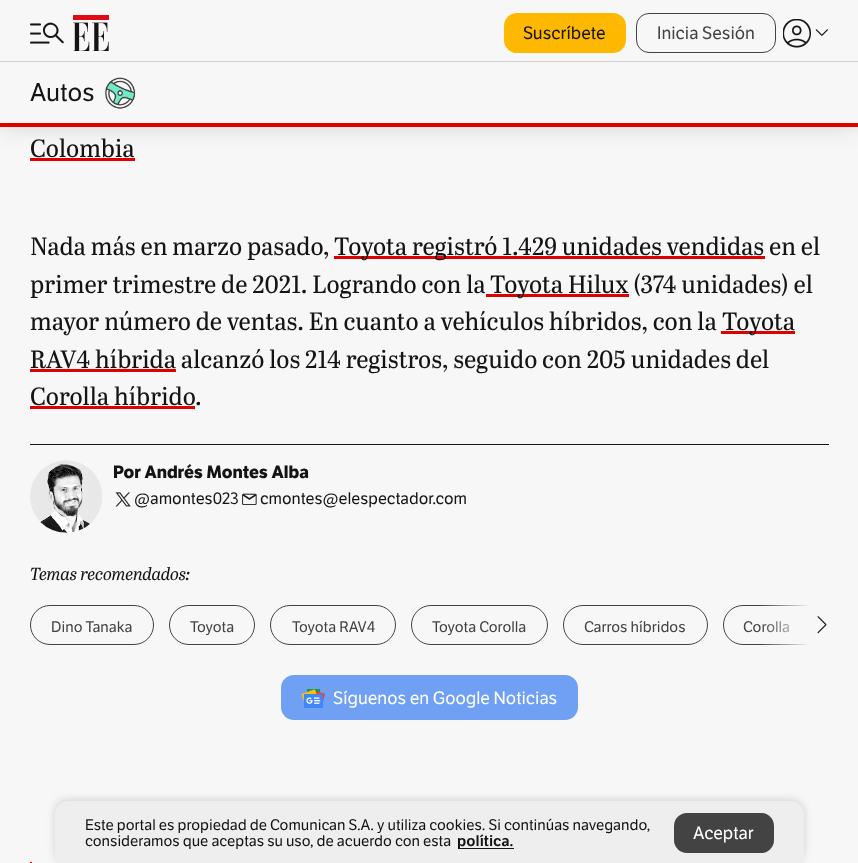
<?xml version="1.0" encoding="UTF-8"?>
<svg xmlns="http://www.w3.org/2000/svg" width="858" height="863">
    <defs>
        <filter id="blur1" x="-50%" y="-200%" width="200%" height="500%"><feGaussianBlur stdDeviation="12.5"/></filter>
        <clipPath id="clip1"><rect x="30" y="605" width="799" height="40"/></clipPath>
        <linearGradient id="g1" gradientUnits="userSpaceOnUse" x1="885" y1="624" x2="760" y2="624"><stop offset="0.6" stop-color="#F7F7F7"/><stop offset="1" stop-color="#F7F7F7" stop-opacity="0"/></linearGradient>
        <filter id="blur2" x="-50%" y="-200%" width="200%" height="500%"><feGaussianBlur stdDeviation="4"/></filter>
    </defs>
    <rect width="100%" height="100%" fill="#F7F7F7"/>
    <rect x="30" y="158" width="105" height="3" fill="#E00000"/>
    <rect x="0" y="3" width="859" height="122" fill="#000000" fill-opacity="0.16" filter="url(#blur1)"/>
    <rect x="0" y="0" width="858" height="123" fill="#F7F7F7"/>
    <image x="30" y="22" width="34" height="22" href="img_01.png"/>
    <image x="73" y="15" width="36" height="36" href="img_02.png"/>
    <rect x="504" y="13" width="122" height="40" rx="13" fill="#FFB800"/>
    <text x="523" y="39" font-family="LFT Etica" font-size="17.5" fill="#141414">Suscríbete</text>
    <rect x="636.5" y="13.5" width="139" height="39" rx="12.5" fill="none" stroke="#434343"/>
    <text x="657" y="39" font-family="LFT Etica" font-size="17.5" fill="#434343">Inicia Sesión</text>
    <image x="783" y="19" width="28" height="29" href="img_03.png"/>
    <image x="815" y="29" width="13" height="7" href="img_04.png"/>
    <rect x="0" y="61" width="858" height="1" fill="#CFCFCF"/>
    <text x="30" y="101" font-family="LFT Etica" font-size="25" fill="#141414">Autos</text>
    <image x="105" y="77" width="31" height="32" href="img_05.png"/>
    <rect x="0" y="123" width="858" height="4" fill="#E00000"/>
    <text x="30" y="157" font-family="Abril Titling" font-size="25" fill="#141414">Colombia</text>
    <text x="30" y="255" font-family="Abril Titling" font-size="25" fill="#141414">Nada más en marzo pasado,</text>
    <rect x="334" y="256" width="431" height="3" fill="#E00000"/>
    <text x="334" y="255" font-family="Abril Titling" font-size="25" fill="#141414">Toyota registró 1.429 unidades vendidas en el</text>
    <text x="30" y="293" font-family="Abril Titling" font-size="25" fill="#141414">primer trimestre de 2021. Logrando con la</text>
    <rect x="486" y="294" width="143" height="3" fill="#E00000"/>
    <text x="490" y="293" font-family="Abril Titling" font-size="25" fill="#141414">Toyota Hilux (374 unidades) el</text>
    <text x="30" y="330" font-family="Abril Titling" font-size="25" fill="#141414">mayor número de ventas. En cuanto a vehículos híbridos, con la</text>
    <rect x="721" y="331" width="74" height="3" fill="#E00000"/>
    <text x="722" y="330" font-family="Abril Titling" font-size="25" fill="#141414">Toyota</text>
    <rect x="30" y="369" width="146" height="3" fill="#E00000"/>
    <text font-family="Abril Titling" font-size="25" fill="#141414">
        <tspan x="30" y="368">RAV4 híbrida alcanzó los 214 registros, seguido con 205 unidades del</tspan>
        <tspan x="30" y="405">Corolla híbrido</tspan>
    </text>
    <rect x="30" y="406" width="165" height="3" fill="#E00000"/>
    <text x="195" y="405" font-family="Abril Titling" font-size="25" fill="#141414">.</text>
    <rect x="30" y="444" width="799" height="1" fill="#141414"/>
    <image x="30" y="460" width="73" height="73" href="img_06.png"/>
    <text x="113" y="478" font-family="LFT Etica" font-size="17.5" font-weight="700" fill="#141414">Por Andrés Montes Alba</text>
    <image x="115" y="492" width="16" height="15" href="img_07.png"/>
    <text x="134" y="504" font-family="LFT Etica" font-size="16.25" fill="#141414">@amontes023</text>
    <image x="242" y="493" width="15" height="12" href="img_08.png"/>
    <text x="260" y="504" font-family="LFT Etica" font-size="16.25" fill="#141414">cmontes@elespectador.com</text>
    <text x="30" y="580" font-family="Abril Titling" font-size="17.5" font-style="italic" fill="#141414">Temas recomendados:</text>
    <rect x="30.5" y="605.5" width="123" height="39" rx="19.5" fill="none" stroke="#434343"/>
    <text x="51" y="632" font-family="LFT Etica" font-size="15" fill="#434343">Dino Tanaka</text>
    <rect x="169.5" y="605.5" width="85" height="39" rx="19.5" fill="none" stroke="#434343"/>
    <text x="190" y="632" font-family="LFT Etica" font-size="15" fill="#434343">Toyota</text>
    <rect x="270.5" y="605.5" width="125" height="39" rx="19.5" fill="none" stroke="#434343"/>
    <text x="292" y="632" font-family="LFT Etica" font-size="15" fill="#434343">Toyota RAV4</text>
    <rect x="411.5" y="605.5" width="136" height="39" rx="19.5" fill="none" stroke="#434343"/>
    <text x="432" y="632" font-family="LFT Etica" font-size="15" fill="#434343">Toyota Corolla</text>
    <rect x="563.5" y="605.5" width="144" height="39" rx="19.5" fill="none" stroke="#434343"/>
    <text x="584" y="632" font-family="LFT Etica" font-size="15" fill="#434343">Carros híbridos</text>
    <g clip-path="url(#clip1)">
        <rect x="723.5" y="605.5" width="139" height="39" rx="19.5" fill="none" stroke="#434343"/>
    </g>
    <text x="743" y="632" font-family="LFT Etica" font-size="15" fill="#434343">Corolla</text>
    <rect x="761" y="605" width="68" height="40" fill="url(#g1)"/>
    <image x="817" y="616" width="10" height="18" href="img_09.png"/>
    <rect x="281" y="675" width="297" height="45" rx="13" fill="#6FA0F4"/>
    <image x="301" y="689" width="24" height="19" href="img_10.png"/>
    <text x="333" y="704" font-family="LFT Etica" font-size="17.5" fill="#FFFFFF">Síguenos en Google Noticias</text>
    <path d="M 30 862 H 32 V 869 V 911 C 32 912 32 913 30 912 V 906 V 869 Z" fill="#E00000"/>
    <rect x="55" y="800" width="749" height="63" rx="13" fill="#000000" fill-opacity="0.16" filter="url(#blur2)"/>
    <path d="M 68 801 H 791 C 798 801 804 807 804 814 V 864 H 55 V 814 C 55 807 61 801 68 801 Z" fill="#EEEEEE"/>
    <text font-family="LFT Etica" font-size="15" fill="#141414">
        <tspan x="85" y="830">Este portal es propiedad de Comunican S.A. y utiliza cookies. Si continúas navegando,</tspan>
        <tspan x="85" y="846">consideramos que aceptas su uso, de acuerdo con esta</tspan>
    </text>
    <rect x="458" y="848" width="56" height="1" fill="#141414"/>
    <text x="457" y="846" font-family="LFT Etica" font-size="15" font-weight="600" fill="#141414">política.</text>
    <rect x="674" y="813" width="100" height="40" rx="13" fill="#434343"/>
    <text x="693" y="839" font-family="LFT Etica" font-size="17.5" fill="#FFFFFF">Aceptar</text>
</svg>
